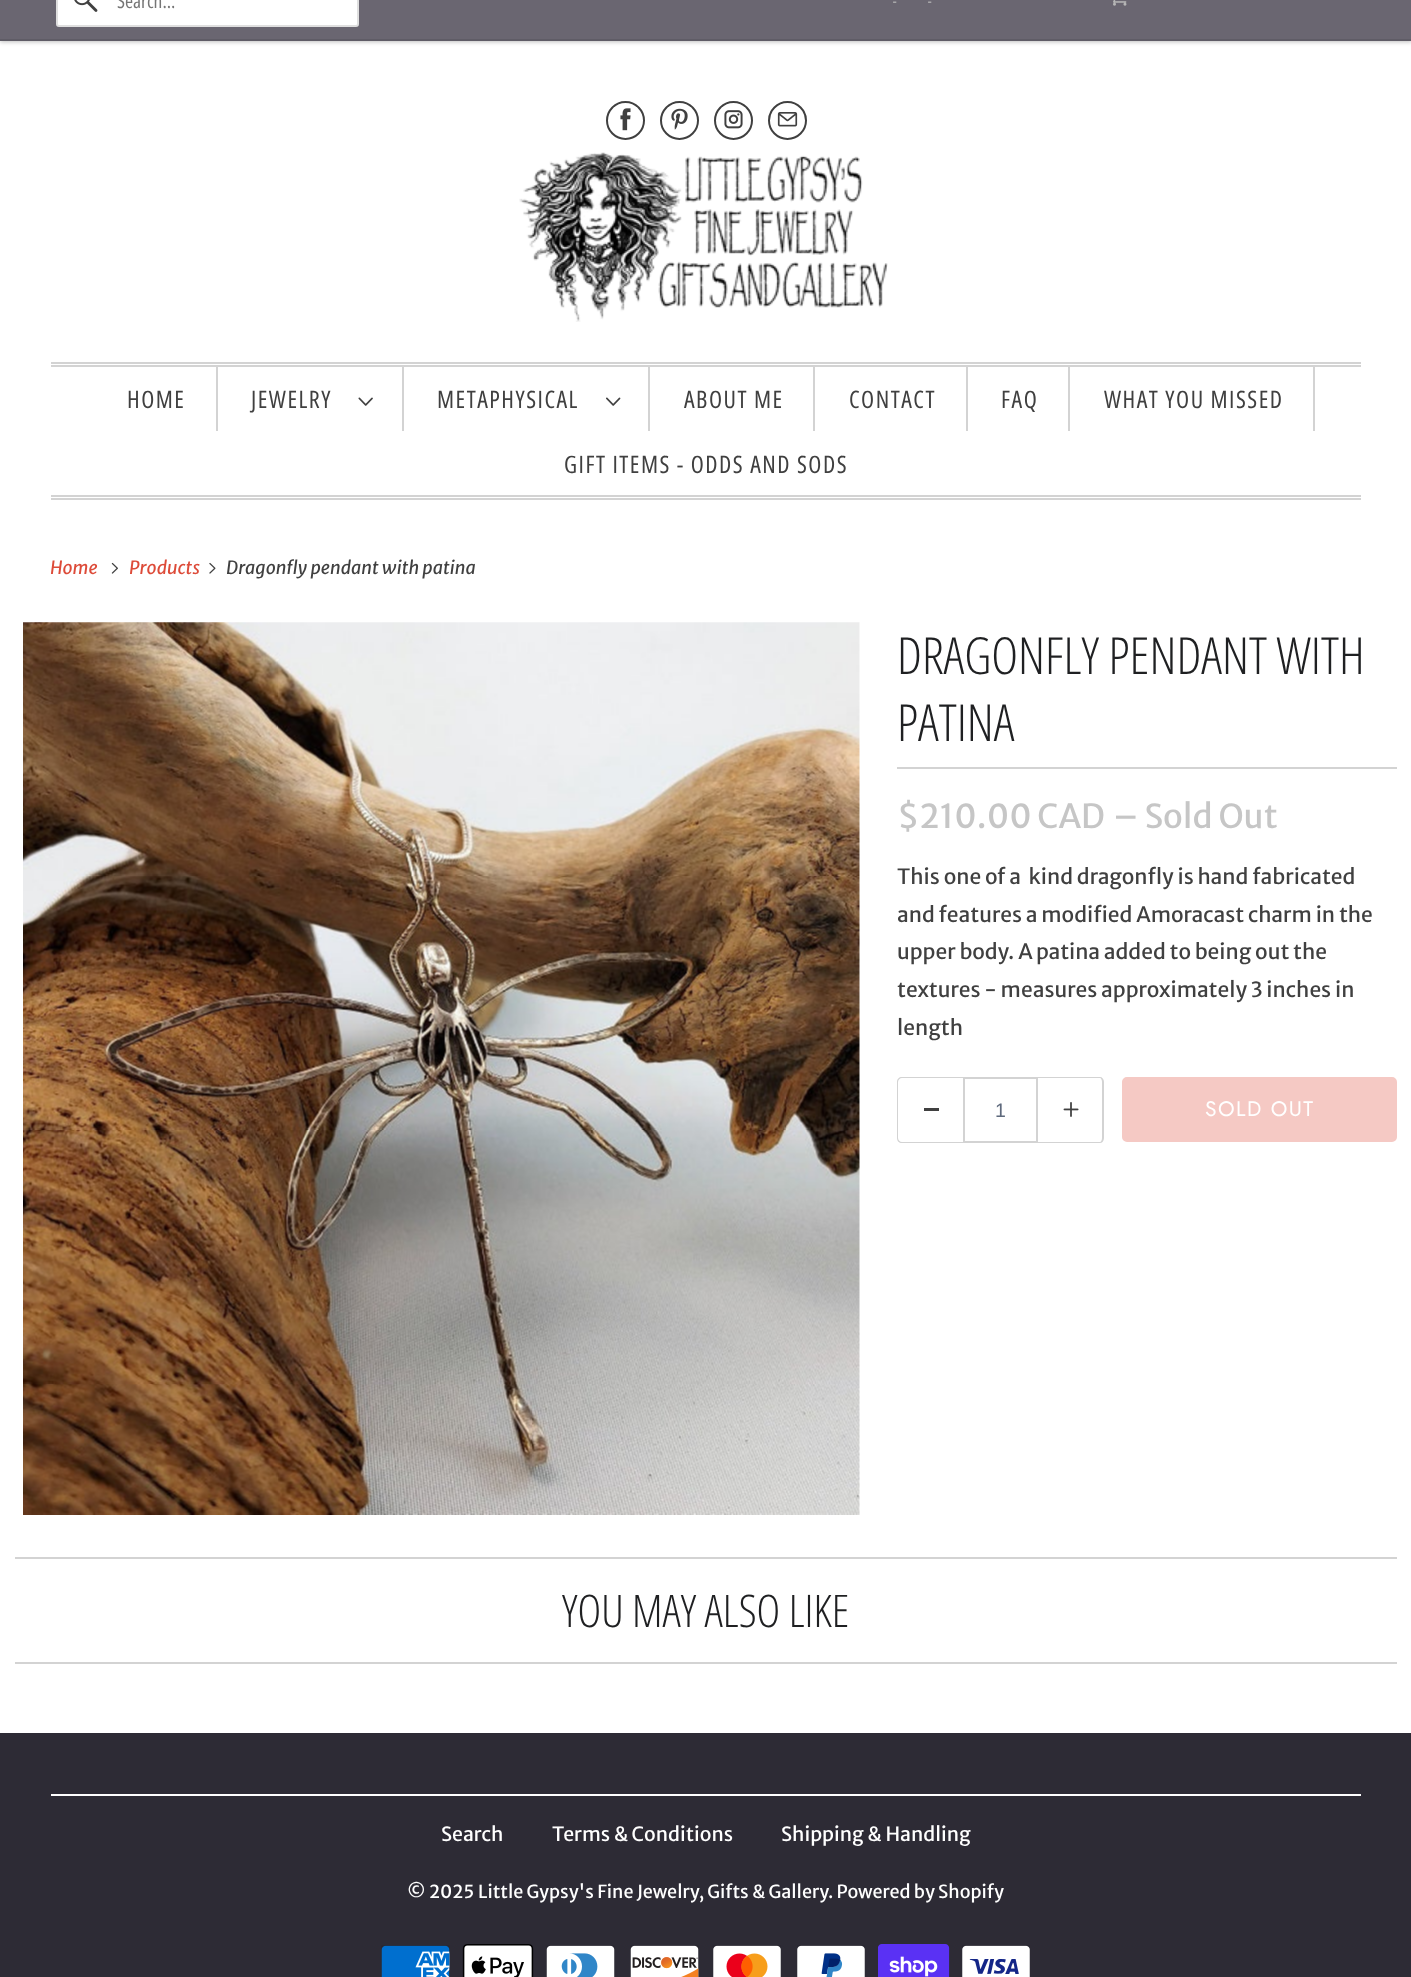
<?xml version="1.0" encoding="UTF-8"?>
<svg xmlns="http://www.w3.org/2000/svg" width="1411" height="1977">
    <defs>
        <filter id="blur1" x="-50%" y="-200%" width="200%" height="500%"><feGaussianBlur stdDeviation="2"/></filter>
    </defs>
    <rect width="100%" height="100%" fill="#FFFFFF"/>
    <rect x="0" y="-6" width="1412" height="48" fill="#000000" fill-opacity="0.25" filter="url(#blur1)"/>
    <rect x="0" y="0" width="1411" height="39" fill="#6A6671"/>
    <rect x="0" y="39" width="1411" height="2" fill="#5F5C66"/>
    <rect x="57" y="-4" width="301" height="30" rx="2" fill="#FFFFFF" stroke="#DFDFDF" stroke-width="2"/>
    <image x="74" y="0" width="24" height="12" href="img_01.png"/>
    <text x="117" y="8" font-family="Open Sans Condensed" font-size="19.5" fill="#757575">Search...</text>
    <text x="893" y="6" font-family="Jost" font-size="16" letter-spacing="1.5" fill="#B6B6B6">-</text>
    <text x="928" y="6" font-family="Jost" font-size="16" letter-spacing="1.5" fill="#B6B6B6">-</text>
    <image x="1113" y="0" width="14" height="6" href="img_02.png"/>
    <circle cx="625.5" cy="120.5" r="18.5" fill="none" stroke="#404040" stroke-width="2"/>
    <image x="620" y="108" width="11" height="23" href="img_03.png"/>
    <circle cx="679.5" cy="120.5" r="18.5" fill="none" stroke="#404040" stroke-width="2"/>
    <image x="671" y="108" width="17" height="22" href="img_04.png"/>
    <circle cx="733.5" cy="120.5" r="18.5" fill="none" stroke="#404040" stroke-width="2"/>
    <image x="724" y="110" width="19" height="19" href="img_05.png"/>
    <circle cx="787.5" cy="120.5" r="18.5" fill="none" stroke="#404040" stroke-width="2"/>
    <image x="777" y="112" width="21" height="15" href="img_06.png"/>
    <image x="519" y="152" width="369" height="170" href="img_07.png"/>
    <rect x="51" y="362" width="1310" height="2" fill="#D3D3D3"/>
    <rect x="51" y="365" width="1310" height="2" fill="#D3D3D3"/>
    <rect x="51" y="495" width="1310" height="2" fill="#D3D3D3"/>
    <rect x="51" y="498" width="1310" height="2" fill="#D3D3D3"/>
    <rect x="216" y="366" width="2" height="65" fill="#D3D3D3"/>
    <text x="127" y="408" font-family="Open Sans Condensed" font-size="24" letter-spacing="1.5" fill="#404040">HOME</text>
    <rect x="402" y="366" width="2" height="65" fill="#D3D3D3"/>
    <text x="251" y="408" font-family="Open Sans Condensed" font-size="24" letter-spacing="1.5" fill="#404040">JEWELRY</text>
    <image x="358" y="397" width="15" height="9" href="img_08.png"/>
    <rect x="648" y="366" width="2" height="65" fill="#D3D3D3"/>
    <text x="437" y="408" font-family="Open Sans Condensed" font-size="24" letter-spacing="1.5" fill="#404040">METAPHYSICAL</text>
    <image x="606" y="397" width="15" height="9" href="img_09.png"/>
    <rect x="813" y="366" width="2" height="65" fill="#D3D3D3"/>
    <text x="684" y="408" font-family="Open Sans Condensed" font-size="24" letter-spacing="1.5" fill="#404040">ABOUT ME</text>
    <rect x="966" y="366" width="2" height="65" fill="#D3D3D3"/>
    <text x="849" y="408" font-family="Open Sans Condensed" font-size="24" letter-spacing="1.5" fill="#404040">CONTACT</text>
    <rect x="1068" y="366" width="2" height="65" fill="#D3D3D3"/>
    <text x="1001" y="408" font-family="Open Sans Condensed" font-size="24" letter-spacing="1.5" fill="#404040">FAQ</text>
    <rect x="1313" y="366" width="2" height="65" fill="#D3D3D3"/>
    <text x="1104" y="408" font-family="Open Sans Condensed" font-size="24" letter-spacing="1.5" fill="#404040">WHAT YOU MISSED</text>
    <text x="564" y="473" font-family="Open Sans Condensed" font-size="24" letter-spacing="1.5" fill="#404040">GIFT ITEMS - ODDS AND SODS</text>
    <text x="50" y="574" font-family="Merriweather Sans" font-size="18" font-style="italic" fill="#DD4B39">Home</text>
    <image x="111" y="562" width="7" height="12" href="img_10.png"/>
    <text x="129" y="574" font-family="Merriweather Sans" font-size="18" font-style="italic" fill="#DD4B39">Products</text>
    <image x="209" y="562" width="7" height="12" href="img_11.png"/>
    <text x="226" y="574" font-family="Merriweather Sans" font-size="18" font-style="italic" fill="#404040">Dragonfly pendant with patina</text>
    <image x="23" y="622" width="837" height="893" href="img_12.png"/>
    <rect x="897" y="767" width="500" height="2" fill="#D3D3D3"/>
    <text font-family="Open Sans Condensed" font-size="51" font-weight="300" fill="#1F2022">
        <tspan x="897" y="674">DRAGONFLY PENDANT WITH</tspan>
        <tspan x="897" y="741">PATINA</tspan>
    </text>
    <text x="897" y="828" font-family="Merriweather Sans" font-size="33" fill="#C6C6C6">$210.00 CAD</text>
    <text x="1113" y="828" font-family="Merriweather Sans" font-size="33" fill="#C6C6C6">– Sold Out</text>
    <text font-family="Merriweather Sans" font-size="21" fill="#404040" xml:space="preserve"><tspan x="897" y="884">This one of a  kind dragonfly is hand fabricated</tspan><tspan x="897" y="922">and features a modified Amoracast charm in the</tspan><tspan x="897" y="959">upper body. A patina added to being out the</tspan><tspan x="897" y="997">textures - measures approximately 3 inches in</tspan><tspan x="897" y="1035">length</tspan></text>
    <path d="M 902 1077 H 963 V 1143 H 902 C 899 1143 897 1141 897 1138 V 1082 C 897 1079 899 1077 902 1077 Z M 902 1078 H 963 V 1142 H 902 C 900 1142 898 1140 898 1138 V 1082 C 898 1080 900 1078 902 1078 Z" fill="#D3D3D3" fill-rule="evenodd"/>
    <rect x="924" y="1108" width="15" height="3" fill="#404040"/>
    <rect x="964" y="1078" width="73" height="64" fill="none" stroke="#D3D3D3" stroke-width="2"/>
    <text x="995" y="1117" font-family="Liberation Sans" font-size="19.5" fill="#5F6A7D">1</text>
    <path d="M 1038 1077 H 1100 C 1102 1077 1104 1079 1104 1082 V 1138 C 1104 1141 1102 1143 1100 1143 H 1038 Z M 1038 1078 H 1100 C 1101 1078 1102 1080 1102 1082 V 1138 C 1102 1140 1101 1142 1100 1142 H 1038 Z" fill="#D3D3D3" fill-rule="evenodd"/>
    <image x="1063" y="1102" width="16" height="15" href="img_13.png"/>
    <rect x="1123" y="1078" width="273" height="63" rx="4" fill="#F5C9C4" stroke="#F5C9C4" stroke-width="2"/>
    <text x="1205" y="1116" font-family="Jost" font-size="21" letter-spacing="1.5" fill="#FFFFFF">SOLD OUT</text>
    <rect x="15" y="1557" width="1382" height="2" fill="#D3D3D3"/>
    <rect x="15" y="1662" width="1382" height="2" fill="#D3D3D3"/>
    <text x="562" y="1627" font-family="Open Sans Condensed" font-size="45" font-weight="300" fill="#1F2022">YOU MAY ALSO LIKE</text>
    <rect x="0" y="1733" width="1411" height="244" fill="#2D2B35"/>
    <rect x="51" y="1794" width="1310" height="2" fill="#FFFFFF"/>
    <text x="441" y="1841" font-family="Merriweather Sans" font-size="19.5" fill="#FFFFFF">Search</text>
    <text x="552" y="1841" font-family="Merriweather Sans" font-size="19.5" fill="#FFFFFF">Terms &amp; Conditions</text>
    <text x="781" y="1841" font-family="Merriweather Sans" font-size="19.5" fill="#FFFFFF">Shipping &amp; Handling</text>
    <text x="407" y="1898" font-family="Merriweather Sans" font-size="18" fill="#FFFFFF">© 2025</text>
    <text x="478" y="1898" font-family="Merriweather Sans" font-size="18" fill="#FFFFFF">Little Gypsy's Fine Jewelry, Gifts &amp; Gallery</text>
    <text x="828" y="1898" font-family="Merriweather Sans" font-size="18" fill="#FFFFFF">. Powered by Shopify</text>
    <image x="381" y="1945" width="69" height="32" href="img_14.png"/>
    <image x="462" y="1944" width="72" height="33" href="img_15.png"/>
    <image x="546" y="1945" width="69" height="32" href="img_16.png"/>
    <image x="630" y="1945" width="69" height="32" href="img_17.png"/>
    <image x="713" y="1945" width="68" height="32" href="img_18.png"/>
    <image x="797" y="1945" width="68" height="32" href="img_19.png"/>
    <image x="878" y="1944" width="72" height="33" href="img_20.png"/>
    <image x="962" y="1945" width="68" height="32" href="img_21.png"/>
</svg>
